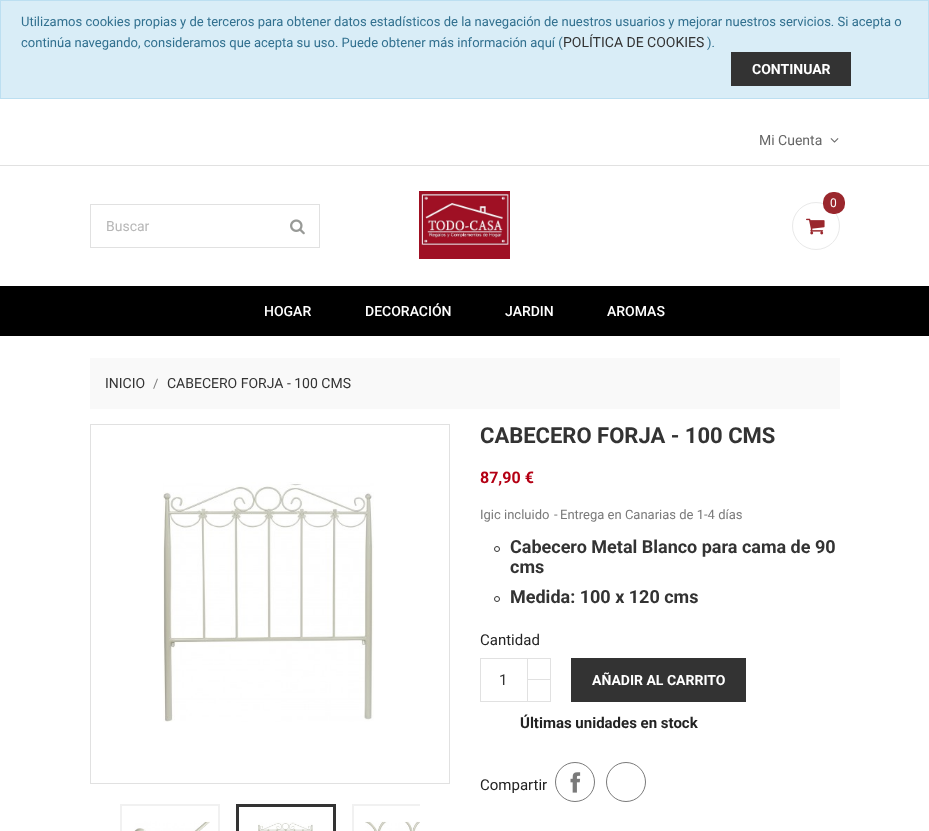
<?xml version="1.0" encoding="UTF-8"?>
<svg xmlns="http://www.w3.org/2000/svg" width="929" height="831">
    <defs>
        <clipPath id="clip1"><rect x="120" y="804" width="300" height="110"/></clipPath>
    </defs>
    <rect width="100%" height="100%" fill="#FFFFFF"/>
    <rect x="0.5" y="0.5" width="928" height="98" fill="#D9EDF7" stroke="#BCDFF1"/>
    <text font-family="Roboto" font-size="13" fill="#31708F">
        <tspan x="21" y="26">Utilizamos cookies propias y de terceros para obtener datos estadísticos de la navegación de nuestros usuarios y mejorar nuestros servicios. Si acepta o</tspan>
        <tspan x="21" y="47">continúa navegando, consideramos que acepta su uso. Puede obtener más información aquí (</tspan>
    </text>
    <text x="563" y="47" font-family="Roboto" font-size="14" fill="#333333">POLÍTICA DE COOKIES</text>
    <text x="707" y="47" font-family="Roboto" font-size="13" fill="#31708F">).</text>
    <rect x="731" y="52" width="120" height="34" fill="#333333"/>
    <text x="752" y="74" font-family="Roboto" font-size="14" font-weight="700" fill="#FFFFFF">CONTINUAR</text>
    <rect x="0" y="165" width="929" height="1" fill="#E1E1E1"/>
    <text x="759" y="145" font-family="Roboto" font-size="14" fill="#666666">Mi Cuenta</text>
    <image x="830" y="138" width="9" height="5" href="img_01.png"/>
    <image x="419" y="191" width="91" height="68" href="img_02.png"/>
    <circle cx="816" cy="226" r="23.5" fill="none" stroke="#E9E9E9"/>
    <rect x="823" y="192" width="22" height="22" rx="10" fill="#9A272D"/>
    <text x="830" y="207" font-family="Roboto" font-size="12" fill="#FFFFFF">0</text>
    <image x="806" y="218" width="19" height="17" href="img_03.png"/>
    <rect x="90.5" y="204.5" width="229" height="43" fill="none" stroke="#E1E1E1"/>
    <text x="106" y="231" font-family="Roboto" font-size="14" fill="#B7B7B7">Buscar</text>
    <image x="290" y="219" width="15" height="16" href="img_04.png"/>
    <rect x="0" y="286" width="929" height="50" fill="#000000"/>
    <text x="264" y="316" font-family="Roboto" font-size="14" font-weight="500" fill="#FFFFFF">HOGAR</text>
    <text x="365" y="316" font-family="Roboto" font-size="14" font-weight="500" fill="#FFFFFF">DECORACIÓN</text>
    <text x="505" y="316" font-family="Roboto" font-size="14" font-weight="500" fill="#FFFFFF">JARDIN</text>
    <text x="607" y="316" font-family="Roboto" font-size="14" font-weight="500" fill="#FFFFFF">AROMAS</text>
    <rect x="90" y="358" width="750" height="51" fill="#F9F9F9"/>
    <text x="105" y="388" font-family="Roboto" font-size="14" fill="#333333">INICIO</text>
    <text x="153" y="388" font-family="Roboto" font-size="13" fill="#7A7A7A">/</text>
    <text x="167" y="388" font-family="Roboto" font-size="14" fill="#333333">CABECERO FORJA - 100 CMS</text>
    <rect x="90.5" y="424.5" width="359" height="359" fill="none" stroke="#E1E1E1"/>
    <image x="163" y="482" width="211" height="240" href="img_05.png"/>
    <rect x="121" y="805" width="98" height="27" fill="none" stroke="#F1F1F1" stroke-width="2"/>
    <rect x="237.5" y="805.5" width="97" height="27" fill="none" stroke="#333333" stroke-width="3"/>
    <g clip-path="url(#clip1)">
        <rect x="353" y="805" width="98" height="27" fill="none" stroke="#F1F1F1" stroke-width="2"/>
    </g>
    <image x="134" y="821" width="76" height="10" href="img_06.png"/>
    <image x="258" y="822" width="55" height="9" href="img_07.png"/>
    <image x="365" y="821" width="55" height="10" href="img_08.png"/>
    <text x="480" y="443" font-family="Roboto" font-size="22" font-weight="700" fill="#333333">CABECERO FORJA - 100 CMS</text>
    <text x="480" y="483" font-family="Roboto" font-size="16" font-weight="700" fill="#B40014">87,90 €</text>
    <text x="480" y="519" font-family="Roboto" font-size="13" fill="#7A7A7A">Igic incluido</text>
    <text x="554" y="519" font-family="Roboto" font-size="13" fill="#7A7A7A">-</text>
    <text x="560" y="519" font-family="Roboto" font-size="13" fill="#7A7A7A">Entrega en Canarias de 1-4 días</text>
    <circle cx="497" cy="549" r="2.5" fill="none" stroke="#333333"/>
    <text font-family="Roboto" font-size="18" font-weight="700" fill="#333333">
        <tspan x="510" y="553">Cabecero Metal Blanco para cama de 90</tspan>
        <tspan x="510" y="573">cms</tspan>
    </text>
    <circle cx="497" cy="599" r="2.5" fill="none" stroke="#333333"/>
    <text x="510" y="603" font-family="Roboto" font-size="18" font-weight="700" fill="#333333">Medida: 100 x 120 cms</text>
    <text x="480" y="645" font-family="Roboto" font-size="15" fill="#232323">Cantidad</text>
    <rect x="527.5" y="658.5" width="23" height="22" fill="none" stroke="#E1E1E1"/>
    <rect x="528" y="680" width="22" height="1" fill="#FFFFFF"/>
    <rect x="527.5" y="679.5" width="23" height="22" fill="none" stroke="#E1E1E1"/>
    <rect x="480.5" y="658.5" width="47" height="43" fill="none" stroke="#E1E1E1"/>
    <text x="499" y="685" font-family="Roboto" font-size="15" fill="#333333">1</text>
    <rect x="571" y="658" width="175" height="44" fill="#333333"/>
    <text x="592" y="685" font-family="Roboto" font-size="14" font-weight="700" fill="#FFFFFF">AÑADIR AL CARRITO</text>
    <text x="520" y="728" font-family="Roboto" font-size="15" font-weight="700" fill="#232323">Últimas unidades en stock</text>
    <text x="480" y="790" font-family="Roboto" font-size="15" fill="#232323">Compartir</text>
    <image x="570" y="772" width="11" height="21" href="img_09.png"/>
    <circle cx="575" cy="782" r="19.5" fill="none" stroke="#7A7A7A"/>
    <circle cx="626" cy="782" r="19.5" fill="none" stroke="#7A7A7A"/>
</svg>
